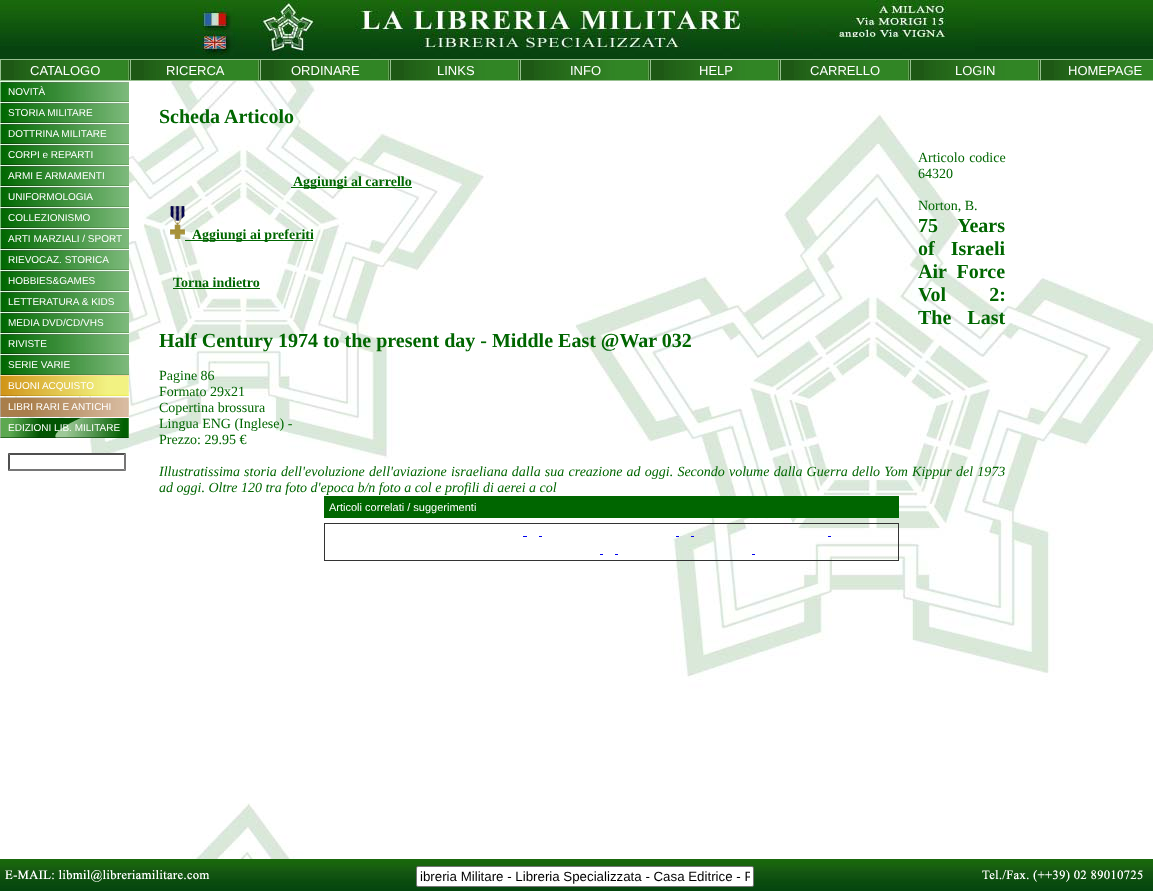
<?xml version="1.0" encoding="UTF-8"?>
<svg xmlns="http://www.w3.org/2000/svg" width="1153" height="891">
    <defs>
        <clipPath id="clip1"><rect x="420" y="869" width="330" height="15"/></clipPath>
    </defs>
    <rect width="100%" height="100%" fill="#FFFFFF"/>
    <image x="0" y="81" width="1153" height="778" href="img_01.png"/>
    <rect x="0" y="46" width="1153" height="13" fill="#07430F"/>
    <image x="0" y="0" width="1153" height="46" href="img_02.png"/>
    <image x="195" y="0" width="780" height="59" href="img_03.png"/>
    <rect x="1" y="60" width="1053" height="20" fill="#1E5815"/>
    <image x="14" y="60" width="115" height="20" href="img_04.png"/>
    <rect x="0" y="59" width="1153" height="1" fill="#98C191"/>
    <rect x="0" y="80" width="1153" height="1" fill="#98C191"/>
    <rect x="0" y="59" width="1" height="22" fill="#98C191"/>
    <text x="30" y="75" font-family="Liberation Sans" font-size="13" fill="#FFFFFF">CATALOGO</text>
    <image x="144" y="60" width="115" height="20" href="img_04.png"/>
    <rect x="130" y="59" width="1" height="22" fill="#98C191"/>
    <text x="166" y="75" font-family="Liberation Sans" font-size="13" fill="#FFFFFF">RICERCA</text>
    <image x="274" y="60" width="115" height="20" href="img_04.png"/>
    <rect x="260" y="59" width="1" height="22" fill="#98C191"/>
    <text x="291" y="75" font-family="Liberation Sans" font-size="13" fill="#FFFFFF">ORDINARE</text>
    <image x="404" y="60" width="115" height="20" href="img_04.png"/>
    <rect x="390" y="59" width="1" height="22" fill="#98C191"/>
    <text x="437" y="75" font-family="Liberation Sans" font-size="13" fill="#FFFFFF">LINKS</text>
    <image x="534" y="60" width="115" height="20" href="img_04.png"/>
    <rect x="520" y="59" width="1" height="22" fill="#98C191"/>
    <text x="570" y="75" font-family="Liberation Sans" font-size="13" fill="#FFFFFF">INFO</text>
    <image x="664" y="60" width="115" height="20" href="img_04.png"/>
    <rect x="650" y="59" width="1" height="22" fill="#98C191"/>
    <text x="699" y="75" font-family="Liberation Sans" font-size="13" fill="#FFFFFF">HELP</text>
    <image x="794" y="60" width="115" height="20" href="img_04.png"/>
    <rect x="780" y="59" width="1" height="22" fill="#98C191"/>
    <text x="810" y="75" font-family="Liberation Sans" font-size="13" fill="#FFFFFF">CARRELLO</text>
    <image x="924" y="60" width="115" height="20" href="img_04.png"/>
    <rect x="910" y="59" width="1" height="22" fill="#98C191"/>
    <text x="955" y="75" font-family="Liberation Sans" font-size="13" fill="#FFFFFF">LOGIN</text>
    <image x="1054" y="60" width="99" height="20" href="img_05.png"/>
    <rect x="1040" y="59" width="1" height="22" fill="#98C191"/>
    <text x="1068" y="75" font-family="Liberation Sans" font-size="13" fill="#FFFFFF">HOMEPAGE</text>
    <image x="0" y="81" width="129" height="21" href="img_06.png"/>
    <text x="8" y="95" font-family="Liberation Sans" font-size="10" fill="#FFFFFF">NOVITÀ</text>
    <image x="0" y="102" width="129" height="21" href="img_06.png"/>
    <text x="8" y="116" font-family="Liberation Sans" font-size="10" fill="#FFFFFF">STORIA MILITARE</text>
    <image x="0" y="123" width="129" height="21" href="img_06.png"/>
    <text x="8" y="137" font-family="Liberation Sans" font-size="10" fill="#FFFFFF">DOTTRINA MILITARE</text>
    <image x="0" y="144" width="129" height="21" href="img_06.png"/>
    <text x="8" y="158" font-family="Liberation Sans" font-size="10" fill="#FFFFFF">CORPI e REPARTI</text>
    <image x="0" y="165" width="129" height="21" href="img_06.png"/>
    <text x="8" y="179" font-family="Liberation Sans" font-size="10" fill="#FFFFFF">ARMI E ARMAMENTI</text>
    <image x="0" y="186" width="129" height="21" href="img_06.png"/>
    <text x="8" y="200" font-family="Liberation Sans" font-size="10" fill="#FFFFFF">UNIFORMOLOGIA</text>
    <image x="0" y="207" width="129" height="21" href="img_06.png"/>
    <text x="8" y="221" font-family="Liberation Sans" font-size="10" fill="#FFFFFF">COLLEZIONISMO</text>
    <image x="0" y="228" width="129" height="21" href="img_06.png"/>
    <text x="8" y="242" font-family="Liberation Sans" font-size="10" fill="#FFFFFF">ARTI MARZIALI / SPORT</text>
    <image x="0" y="249" width="129" height="21" href="img_06.png"/>
    <text x="8" y="263" font-family="Liberation Sans" font-size="10" fill="#FFFFFF">RIEVOCAZ. STORICA</text>
    <image x="0" y="270" width="129" height="21" href="img_06.png"/>
    <text x="8" y="284" font-family="Liberation Sans" font-size="10" fill="#FFFFFF">HOBBIES&amp;GAMES</text>
    <image x="0" y="291" width="129" height="21" href="img_06.png"/>
    <text x="8" y="305" font-family="Liberation Sans" font-size="10" fill="#FFFFFF">LETTERATURA &amp; KIDS</text>
    <image x="0" y="312" width="129" height="21" href="img_06.png"/>
    <text x="8" y="326" font-family="Liberation Sans" font-size="10" fill="#FFFFFF">MEDIA DVD/CD/VHS</text>
    <image x="0" y="333" width="129" height="21" href="img_06.png"/>
    <text x="8" y="347" font-family="Liberation Sans" font-size="10" fill="#FFFFFF">RIVISTE</text>
    <image x="0" y="354" width="129" height="21" href="img_06.png"/>
    <text x="8" y="368" font-family="Liberation Sans" font-size="10" fill="#FFFFFF">SERIE VARIE</text>
    <image x="0" y="375" width="129" height="21" href="img_07.png"/>
    <text x="8" y="389" font-family="Liberation Sans" font-size="10" fill="#FFFFFF">BUONI ACQUISTO</text>
    <image x="0" y="396" width="129" height="21" href="img_08.png"/>
    <text x="8" y="410" font-family="Liberation Sans" font-size="10" fill="#FFFFFF">LIBRI RARI E ANTICHI</text>
    <image x="0" y="417" width="129" height="21" href="img_09.png"/>
    <text x="8" y="431" font-family="Liberation Sans" font-size="10" fill="#FFFFFF">EDIZIONI LIB. MILITARE</text>
    <rect x="81" y="453" width="45" height="11" fill="#FFFFFF"/>
    <path d="M 8 453 H 126 L 124 455 H 10 Z" fill="#4F4F4F"/>
    <path d="M 126 453 V 471 L 124 469 V 455 Z" fill="#767676"/>
    <path d="M 126 471 H 8 L 10 469 H 124 Z" fill="#767676"/>
    <path d="M 8 471 V 453 L 10 455 V 469 Z" fill="#4F4F4F"/>
    <text x="159" y="123" font-family="Liberation Serif" font-size="20" font-weight="700" fill="#006600">Scheda Articolo</text>
    <text font-family="Liberation Serif" font-size="14" fill="#006600">
        <tspan x="918" y="162" word-spacing="1">Articolo codice</tspan>
        <tspan x="918" y="178">64320</tspan>
    </text>
    <rect x="291" y="187" width="121" height="1" fill="#006600"/>
    <text x="293" y="186" font-family="Liberation Serif" font-size="14" font-weight="700" fill="#006600">Aggiungi al carrello</text>
    <image x="170" y="206" width="15" height="33" href="img_10.png"/>
    <rect x="185" y="240" width="128" height="1" fill="#006600"/>
    <text x="192" y="239" font-family="Liberation Serif" font-size="14" font-weight="700" fill="#006600">Aggiungi ai preferiti</text>
    <text x="173" y="287" font-family="Liberation Serif" font-size="14" font-weight="700" fill="#006600">Torna indietro</text>
    <rect x="173" y="288" width="87" height="1" fill="#006600"/>
    <text x="918" y="210" font-family="Liberation Serif" font-size="14" fill="#006600">Norton, B.</text>
    <text font-family="Liberation Serif" font-size="20" font-weight="700" fill="#006600">
        <tspan x="918" y="232" word-spacing="15">75 Years</tspan>
        <tspan x="918" y="255" word-spacing="11">of Israeli</tspan>
        <tspan x="918" y="278" word-spacing="5">Air Force</tspan>
        <tspan x="918" y="301" word-spacing="38">Vol 2:</tspan>
        <tspan x="918" y="324" word-spacing="11">The Last</tspan>
    </text>
    <text x="159" y="347" font-family="Liberation Serif" font-size="20" font-weight="700" fill="#006600">Half Century 1974 to the present day - Middle East @War 032</text>
    <text font-family="Liberation Serif" font-size="14" fill="#006600">
        <tspan x="159" y="380">Pagine 86</tspan>
        <tspan x="159" y="396">Formato 29x21</tspan>
        <tspan x="159" y="412">Copertina brossura</tspan>
        <tspan x="159" y="428">Lingua ENG (Inglese) -</tspan>
        <tspan x="159" y="444">Prezzo: 29.95 €</tspan>
    </text>
    <text font-family="Liberation Serif" font-size="14" font-style="italic" fill="#006600">
        <tspan x="159" y="476" word-spacing="0.7">Illustratissima storia dell'evoluzione dell'aviazione israeliana dalla sua creazione ad oggi. Secondo volume dalla Guerra dello Yom Kippur del 1973</tspan>
        <tspan x="159" y="492">ad oggi. Oltre 120 tra foto d'epoca b/n foto a col e profili di aerei a col</tspan>
    </text>
    <rect x="324" y="496" width="575" height="22" fill="#006600"/>
    <text x="329" y="511" font-family="Liberation Sans" font-size="11" fill="#FFFFFF">Articoli correlati / suggerimenti</text>
    <rect x="324.5" y="523.5" width="574" height="37" fill="none" stroke="#333333"/>
    <rect x="523" y="536" width="4" height="1" fill="#0000EE"/>
    <rect x="539" y="536" width="3" height="1" fill="#0000EE"/>
    <rect x="676" y="536" width="3" height="1" fill="#0000EE"/>
    <rect x="691" y="536" width="3" height="1" fill="#0000EE"/>
    <rect x="828" y="536" width="3" height="1" fill="#0000EE"/>
    <rect x="600" y="554" width="3" height="1" fill="#0000EE"/>
    <rect x="615" y="554" width="3" height="1" fill="#0000EE"/>
    <rect x="752" y="554" width="3" height="1" fill="#0000EE"/>
    <image x="0" y="859" width="214" height="32" href="img_11.png"/>
    <image x="5" y="870" width="205" height="12" href="img_12.png"/>
    <image x="214" y="859" width="742" height="32" href="img_13.png"/>
    <rect x="416.5" y="866.5" width="337" height="20" rx="1.5" fill="#FFFFFF" stroke="#767676"/>
    <g clip-path="url(#clip1)">
        <text x="420" y="881" font-family="Liberation Sans" font-size="13.3" fill="#000000">ibreria Militare - Libreria Specializzata - Casa Editrice - P</text>
    </g>
    <image x="956" y="859" width="197" height="32" href="img_14.png"/>
    <image x="982" y="870" width="161" height="12" href="img_15.png"/>
</svg>
